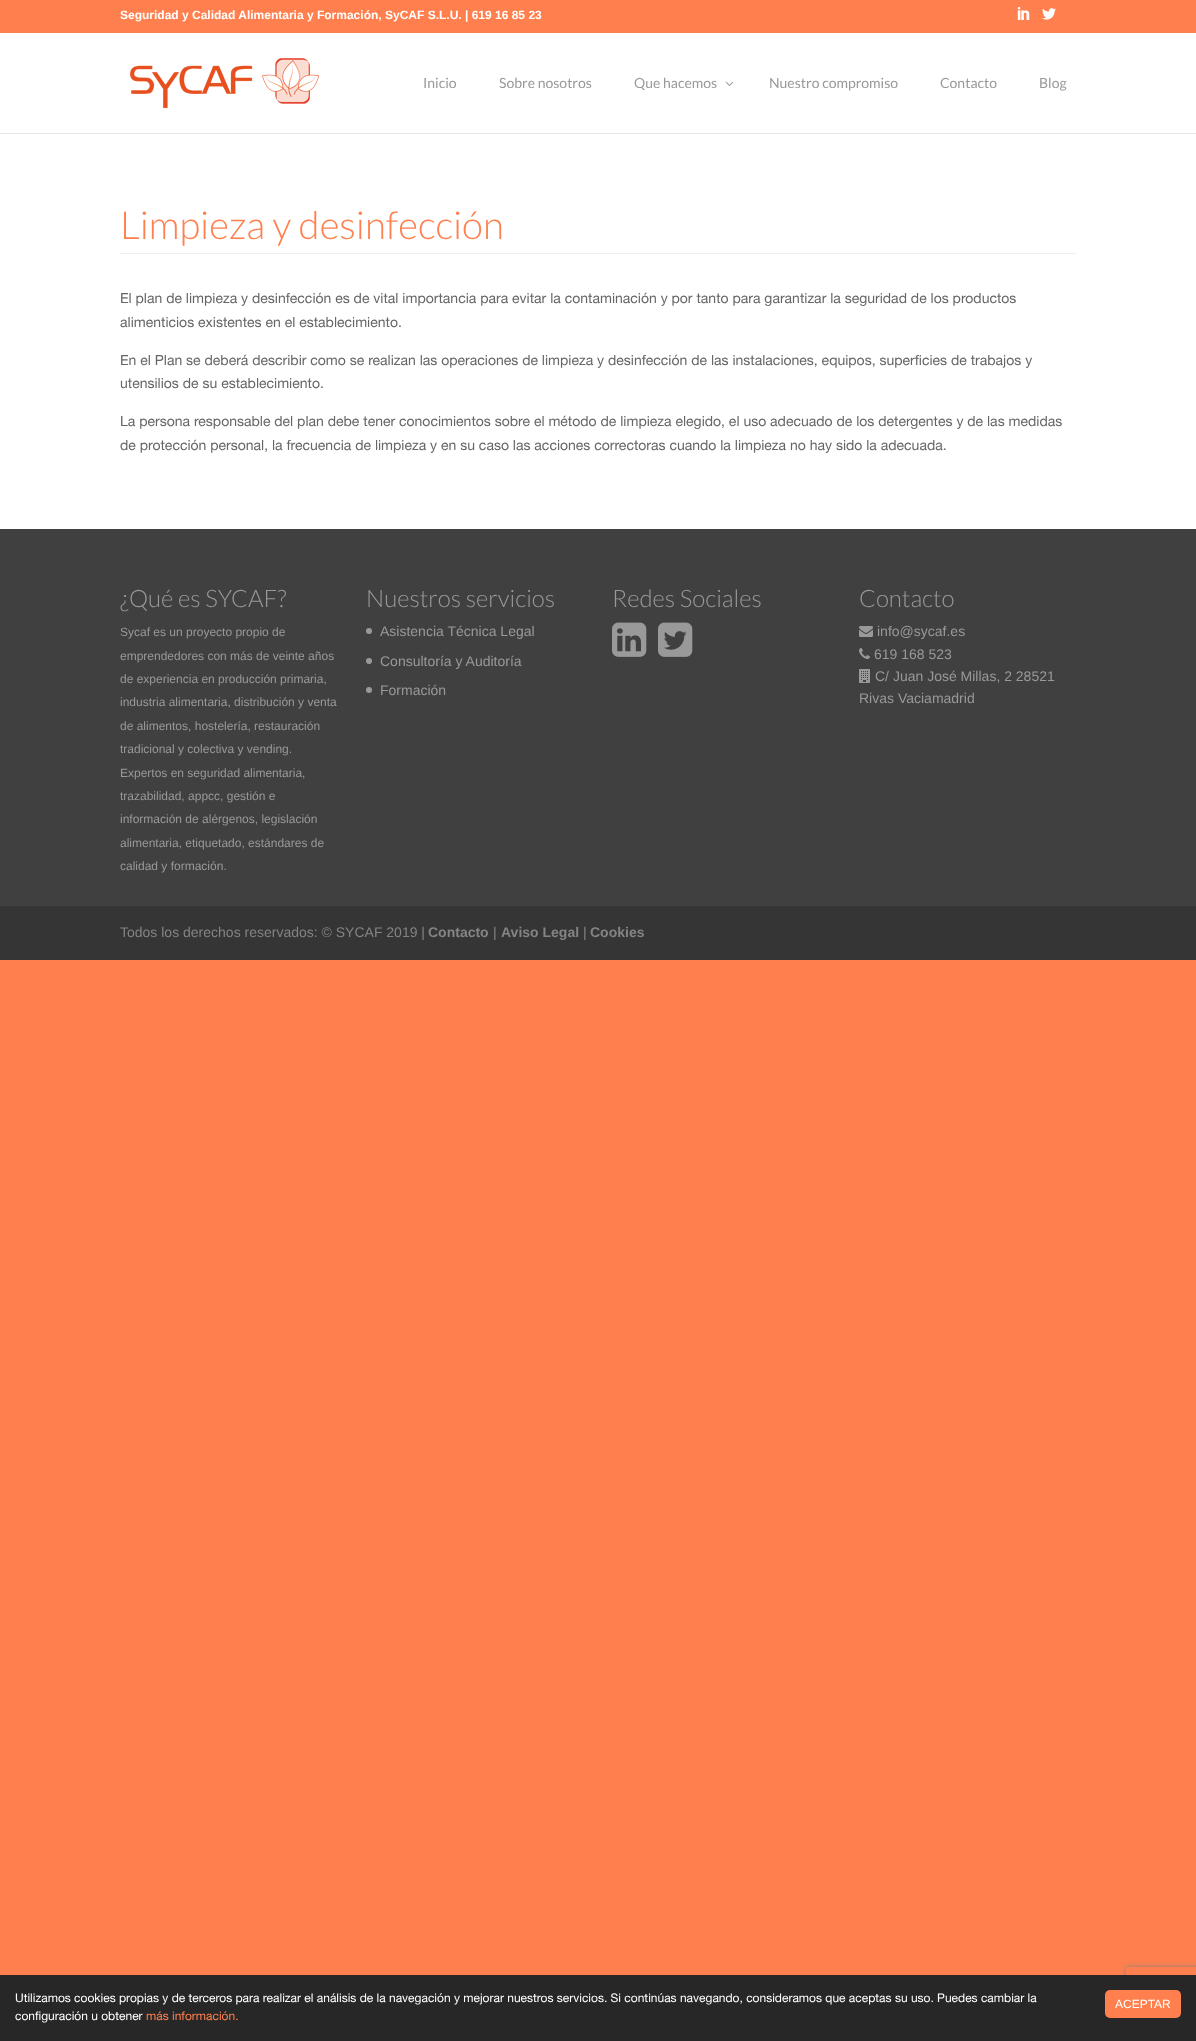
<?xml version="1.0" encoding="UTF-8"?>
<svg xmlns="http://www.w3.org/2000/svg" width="1196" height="2041">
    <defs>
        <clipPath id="clip1"><path d="M 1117 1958 H 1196 V 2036 H 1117 Z M 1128 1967 H 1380 C 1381 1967 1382 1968 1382 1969 V 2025 C 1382 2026 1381 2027 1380 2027 H 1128 C 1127 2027 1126 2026 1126 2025 V 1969 C 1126 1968 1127 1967 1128 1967 Z" clip-rule="evenodd"/></clipPath>
        <filter id="blur1" x="-50%" y="-200%" width="200%" height="500%"><feGaussianBlur stdDeviation="2.5"/></filter>
    </defs>
    <rect width="100%" height="100%" fill="#FF804E"/>
    <text x="120" y="19" font-family="Liberation Sans" font-size="12" font-weight="700" fill="#FFFFFF">Seguridad y Calidad Alimentaria y Formación, SyCAF S.L.U. | 619 16 85 23</text>
    <image x="1017" y="6" width="13" height="14" href="img_01.png"/>
    <image x="1042" y="8" width="14" height="12" href="img_02.png"/>
    <rect x="0" y="133" width="1196" height="1" fill="#E6E6E6"/>
    <rect x="0" y="33" width="1196" height="100" fill="#FFFFFF"/>
    <image x="130" y="58" width="189" height="50" href="img_03.png"/>
    <text x="423" y="88" font-family="Lato" font-size="14" fill="#999999">Inicio</text>
    <text x="499" y="88" font-family="Lato" font-size="14" fill="#999999">Sobre nosotros</text>
    <text x="634" y="88" font-family="Lato" font-size="14" fill="#999999">Que hacemos</text>
    <image x="725" y="81" width="9" height="5" href="img_04.png"/>
    <text x="769" y="88" font-family="Lato" font-size="14" fill="#999999">Nuestro compromiso</text>
    <text x="940" y="88" font-family="Lato" font-size="14" fill="#999999">Contacto</text>
    <text x="1039" y="88" font-family="Lato" font-size="14" fill="#999999">Blog</text>
    <rect x="0" y="134" width="1196" height="395" fill="#FFFFFF"/>
    <rect x="120" y="253" width="956" height="1" fill="#EEEEEE"/>
    <text x="120" y="239" font-family="Lato" font-size="38.5" font-weight="300" fill="#FF804E">Limpieza y desinfección</text>
    <text font-family="Helvetica Neue" font-size="14" fill="#666666">
        <tspan x="120" y="303">El plan de limpieza y desinfección es de vital importancia para evitar la contaminación y por tanto para garantizar la seguridad de los productos</tspan>
        <tspan x="120" y="327">alimenticios existentes en el establecimiento.</tspan>
    </text>
    <text font-family="Helvetica Neue" font-size="14" fill="#666666">
        <tspan x="120" y="365">En el Plan se deberá describir como se realizan las operaciones de limpieza y desinfección de las instalaciones, equipos, superficies de trabajos y</tspan>
        <tspan x="120" y="388">utensilios de su establecimiento.</tspan>
    </text>
    <text font-family="Helvetica Neue" font-size="14" fill="#666666">
        <tspan x="120" y="426">La persona responsable del plan debe tener conocimientos sobre el método de limpieza elegido, el uso adecuado de los detergentes y de las medidas</tspan>
        <tspan x="120" y="450">de protección personal, la frecuencia de limpieza y en su caso las acciones correctoras cuando la limpieza no hay sido la adecuada.</tspan>
    </text>
    <rect x="0" y="529" width="1196" height="377" fill="#404040"/>
    <text x="120" y="607" font-family="Lato" font-size="24" font-weight="300" fill="#999999">¿Qué es SYCAF?</text>
    <text x="120" y="636" font-family="Liberation Sans" font-size="12" fill="#999999">Sycaf es un proyecto propio de</text>
    <text font-family="Liberation Sans" font-size="12" fill="#999999">
        <tspan x="120" y="660">emprendedores con más de veinte años</tspan>
        <tspan x="120" y="683">de experiencia en producción primaria,</tspan>
        <tspan x="120" y="706">industria alimentaria, distribución y venta</tspan>
    </text>
    <text font-family="Liberation Sans" font-size="12" fill="#999999">
        <tspan x="120" y="730">de alimentos, hostelería, restauración</tspan>
        <tspan x="120" y="753">tradicional y colectiva y vending.</tspan>
    </text>
    <text font-family="Liberation Sans" font-size="12" fill="#999999">
        <tspan x="120" y="777">Expertos en seguridad alimentaria,</tspan>
        <tspan x="120" y="800">trazabilidad, appcc, gestión e</tspan>
        <tspan x="120" y="823">información de alérgenos, legislación</tspan>
    </text>
    <text font-family="Liberation Sans" font-size="12" fill="#999999">
        <tspan x="120" y="847">alimentaria, etiquetado, estándares de</tspan>
        <tspan x="120" y="870">calidad y formación.</tspan>
    </text>
    <text x="366" y="607" font-family="Lato" font-size="24" font-weight="300" fill="#999999">Nuestros servicios</text>
    <circle cx="369" cy="631" r="3" fill="#999999"/>
    <text x="380" y="636" font-family="Liberation Sans" font-size="14" fill="#999999">Asistencia Técnica Legal</text>
    <circle cx="369" cy="661" r="3" fill="#999999"/>
    <text x="380" y="666" font-family="Liberation Sans" font-size="14" fill="#999999">Consultoría y Auditoría</text>
    <circle cx="369" cy="690" r="3" fill="#999999"/>
    <text x="380" y="695" font-family="Liberation Sans" font-size="14" fill="#999999">Formación</text>
    <text x="612" y="607" font-family="Lato" font-size="24" font-weight="300" fill="#999999">Redes Sociales</text>
    <image x="612" y="622" width="35" height="35" href="img_05.png"/>
    <image x="658" y="622" width="35" height="35" href="img_06.png"/>
    <text x="859" y="607" font-family="Lato" font-size="24" font-weight="300" fill="#999999">Contacto</text>
    <image x="859" y="626" width="14" height="11" href="img_07.png"/>
    <text x="877" y="636" font-family="Liberation Sans" font-size="14" fill="#999999">info@sycaf.es</text>
    <image x="859" y="648" width="11" height="11" href="img_08.png"/>
    <text x="874" y="659" font-family="Liberation Sans" font-size="14" fill="#999999">619 168 523</text>
    <image x="859" y="669" width="11" height="14" href="img_09.png"/>
    <text x="875" y="681" font-family="Liberation Sans" font-size="14" fill="#999999">C/ Juan José Millas, 2 28521</text>
    <text x="859" y="703" font-family="Liberation Sans" font-size="14" fill="#999999">Rivas Vaciamadrid</text>
    <rect x="0" y="906" width="1196" height="54" fill="#353535"/>
    <text x="120" y="937" font-family="Liberation Sans" font-size="14" fill="#848484">Todos los derechos reservados: © SYCAF 2019 |</text>
    <text x="428" y="937" font-family="Liberation Sans" font-size="14" font-weight="700" fill="#848484">Contacto</text>
    <text x="493" y="937" font-family="Liberation Sans" font-size="14" fill="#848484">|</text>
    <text x="501" y="937" font-family="Liberation Sans" font-size="14" font-weight="700" fill="#848484">Aviso Legal</text>
    <text x="583" y="937" font-family="Liberation Sans" font-size="14" fill="#848484">|</text>
    <text x="590" y="937" font-family="Liberation Sans" font-size="14" font-weight="700" fill="#848484">Cookies</text>
    <g clip-path="url(#clip1)">
        <rect x="1126" y="1967" width="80" height="60" rx="2" fill="#808080" filter="url(#blur1)"/>
    </g>
    <rect x="0" y="1975" width="1196" height="66" fill="#272727"/>
    <text font-family="Helvetica Neue" font-size="12" fill="#FFFFFF">
        <tspan x="15" y="2002">Utilizamos cookies propias y de terceros para realizar el análisis de la navegación y mejorar nuestros servicios. Si continúas navegando, consideramos que aceptas su uso. Puedes cambiar la</tspan>
        <tspan x="15" y="2020">configuración u obtener</tspan>
    </text>
    <text x="146" y="2020" font-family="Helvetica Neue" font-size="12" fill="#FF804E">más información.</text>
    <rect x="1105" y="1990" width="76" height="28" rx="5" fill="#FF804E"/>
    <text x="1115" y="2008" font-family="Liberation Sans" font-size="12" fill="#FFFFFF">ACEPTAR</text>
</svg>
